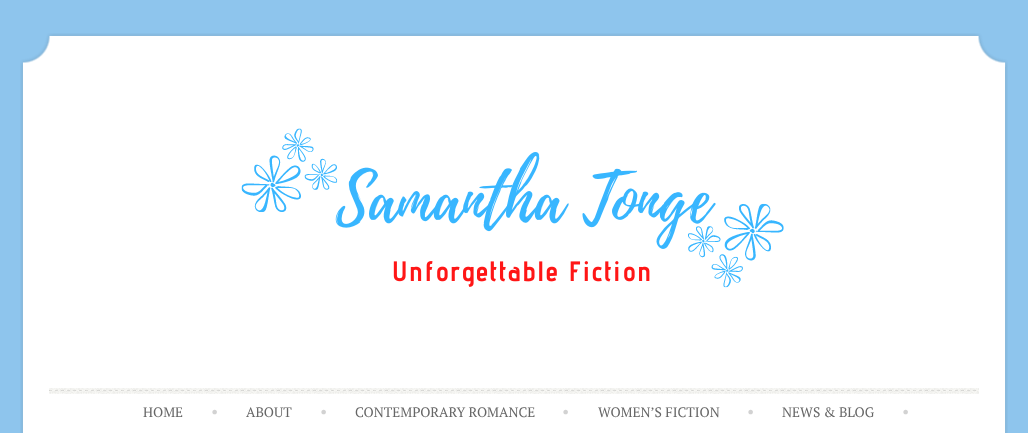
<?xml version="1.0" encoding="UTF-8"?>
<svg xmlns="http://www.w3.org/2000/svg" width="1028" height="433">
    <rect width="100%" height="100%" fill="#8EC5ED"/>
    <image x="20" y="33" width="988" height="34" href="img_01.png"/>
    <image x="20" y="67" width="988" height="366" href="img_02.png"/>
    <image x="241" y="128" width="543" height="160" href="img_03.png"/>
    <image x="49" y="388" width="930" height="6" href="img_04.png"/>
    <text x="143" y="417" font-family="PT Serif" font-size="13.75" fill="#666666">HOME</text>
    <text x="211" y="417" font-family="PT Serif" font-size="16" fill="#D2D2D2">•</text>
    <text x="246" y="417" font-family="PT Serif" font-size="13.75" fill="#666666">ABOUT</text>
    <text x="320" y="417" font-family="PT Serif" font-size="16" fill="#D2D2D2">•</text>
    <text x="355" y="417" font-family="PT Serif" font-size="13.75" fill="#666666">CONTEMPORARY ROMANCE</text>
    <text x="562" y="417" font-family="PT Serif" font-size="16" fill="#D2D2D2">•</text>
    <text x="598" y="417" font-family="PT Serif" font-size="13.75" fill="#666666">WOMEN’S FICTION</text>
    <text x="747" y="417" font-family="PT Serif" font-size="16" fill="#D2D2D2">•</text>
    <text x="782" y="417" font-family="PT Serif" font-size="13.75" fill="#666666">NEWS &amp; BLOG</text>
    <text x="902" y="417" font-family="PT Serif" font-size="16" fill="#D2D2D2">•</text>
</svg>
